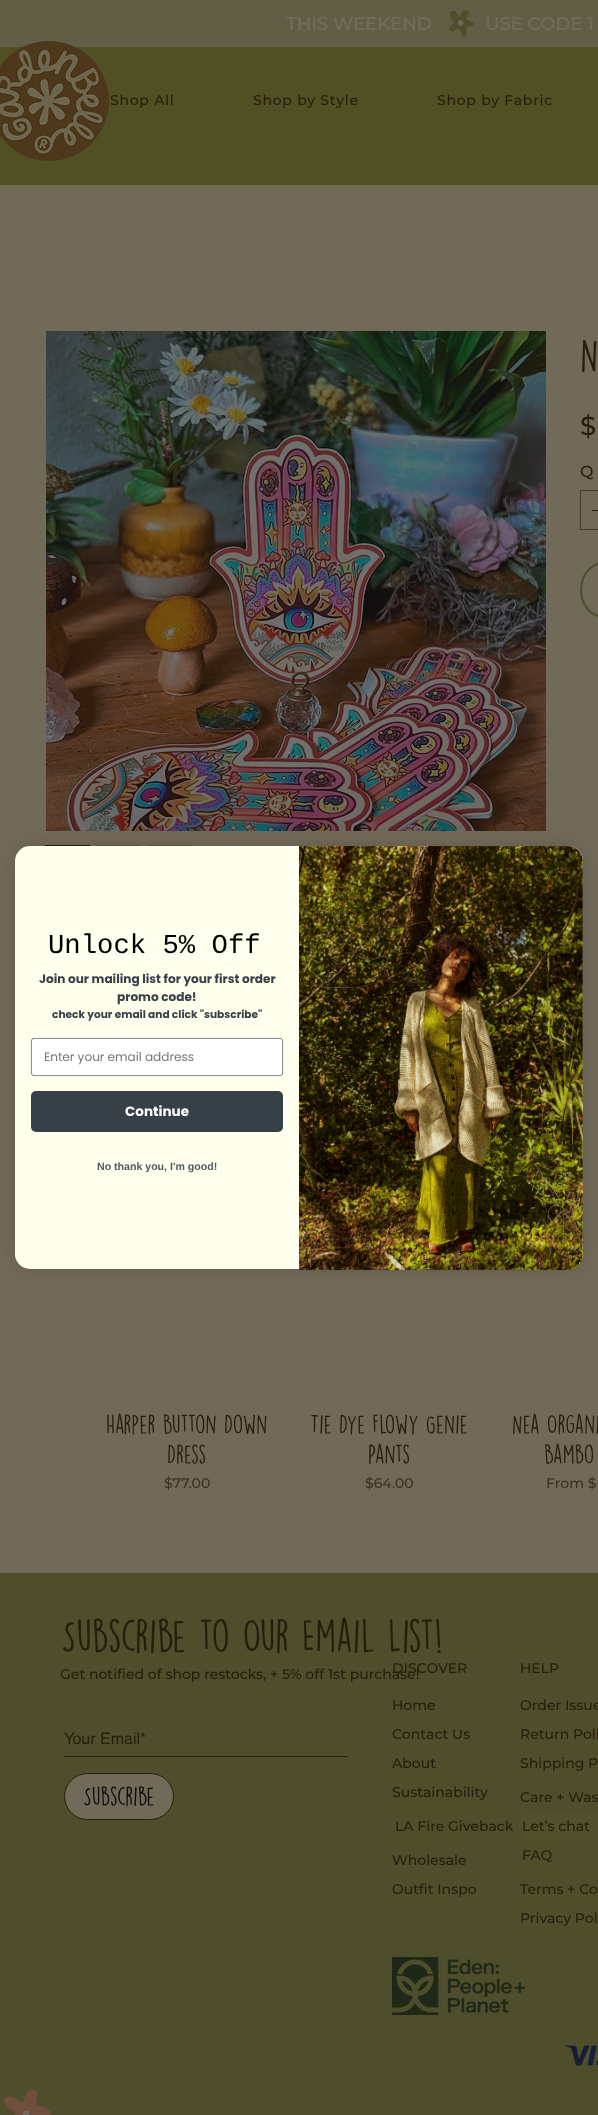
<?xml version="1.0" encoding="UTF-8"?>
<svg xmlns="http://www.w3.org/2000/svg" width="598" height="2115">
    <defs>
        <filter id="blur1" x="-50%" y="-200%" width="200%" height="500%"><feGaussianBlur stdDeviation="11.5"/></filter>
    </defs>
    <rect width="100%" height="100%" fill="#726A59"/>
    <rect x="0" y="0" width="598" height="47" fill="#625E45"/>
    <text x="286" y="30" font-family="Montserrat" font-size="18" font-weight="700" fill="#726A59">THIS WEEKEND</text>
    <image x="449" y="10" width="25" height="27" href="img_01.png"/>
    <text x="485" y="30" font-family="Montserrat" font-size="18" font-weight="700" fill="#726A59">USE CODE 1</text>
    <rect x="0" y="47" width="598" height="138" fill="#515025"/>
    <image x="0" y="41" width="109" height="120" href="img_02.png"/>
    <text x="110" y="105" font-family="Montserrat" font-size="14" font-weight="500" letter-spacing="0.75" fill="#281D0C">Shop All</text>
    <text x="253" y="105" font-family="Montserrat" font-size="14" font-weight="500" letter-spacing="0.75" fill="#281D0C">Shop by Style</text>
    <text x="437" y="105" font-family="Montserrat" font-size="14" font-weight="500" letter-spacing="0.75" fill="#281D0C">Shop by Fabric</text>
    <image x="46" y="331" width="500" height="500" href="img_03.png"/>
    <rect x="45.5" y="845.5" width="44" height="44" fill="none" stroke="#281D0C"/>
    <rect x="96" y="845" width="45" height="1" fill="#605746"/>
    <rect x="147" y="845" width="45" height="1" fill="#605746"/>
    <text x="580" y="372" font-family="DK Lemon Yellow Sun" font-size="42" fill="#281D0C">N</text>
    <text x="580" y="435" font-family="Montserrat" font-size="26" font-weight="500" fill="#281D0C">$</text>
    <text x="580" y="477" font-family="Montserrat" font-size="16" font-weight="500" fill="#281D0C">Q</text>
    <rect x="580.5" y="490.5" width="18" height="39" fill="none" stroke="#463C2B"/>
    <rect x="592" y="510" width="6" height="1" fill="#281D0C"/>
    <rect x="581" y="563" width="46" height="54" rx="27" fill="none" stroke="#4E4E2C" stroke-width="2"/>
    <text x="106" y="1434" font-family="DK Lemon Yellow Sun" font-size="24" fill="#281D0C">Harper Button Down</text>
    <text x="167" y="1464" font-family="DK Lemon Yellow Sun" font-size="24" fill="#281D0C">Dress</text>
    <text x="164" y="1488" font-family="Montserrat" font-size="14" font-weight="500" fill="#3B301F">$77.00</text>
    <text x="310" y="1434" font-family="DK Lemon Yellow Sun" font-size="24" fill="#281D0C">Tie Dye Flowy Genie</text>
    <text x="368" y="1464" font-family="DK Lemon Yellow Sun" font-size="24" fill="#281D0C">Pants</text>
    <text x="365" y="1488" font-family="Montserrat" font-size="14" font-weight="500" fill="#3B301F">$64.00</text>
    <text x="512" y="1434" font-family="DK Lemon Yellow Sun" font-size="24" fill="#281D0C">Nea Organi</text>
    <text x="544" y="1464" font-family="DK Lemon Yellow Sun" font-size="24" fill="#281D0C">Bambo</text>
    <text x="546" y="1488" font-family="Montserrat" font-size="14" font-weight="500" fill="#3B301F">From $</text>
    <rect x="0" y="1573" width="598" height="542" fill="#4E4E2C"/>
    <text x="61" y="1653" font-family="DK Lemon Yellow Sun" font-size="42" fill="#281D0C">Subscribe to Our Email List!</text>
    <text x="60" y="1679" font-family="Montserrat" font-size="14" font-weight="500" fill="#281D0C">Get notified of shop restocks, + 5% off 1st purchase!</text>
    <rect x="64" y="1756" width="284" height="1" fill="#281D0C"/>
    <text x="64" y="1744" font-family="helvetica" font-size="16" fill="#281D0C">Your Email*</text>
    <rect x="64.5" y="1773.5" width="109" height="46" rx="23" fill="#726A59" stroke="#281D0C"/>
    <text x="83" y="1806" font-family="DK Lemon Yellow Sun" font-size="24" fill="#0C0C0C">Subscribe</text>
    <text x="392" y="1673" font-family="Montserrat" font-size="14" font-weight="500" fill="#281D0C">DISCOVER</text>
    <text x="520" y="1673" font-family="Montserrat" font-size="14" font-weight="500" fill="#281D0C">HELP</text>
    <text x="392" y="1710" font-family="Montserrat" font-size="14" font-weight="500" fill="#281D0C">Home</text>
    <text x="520" y="1710" font-family="Montserrat" font-size="14" font-weight="500" fill="#281D0C">Order Issue</text>
    <text x="392" y="1739" font-family="Montserrat" font-size="14" font-weight="500" fill="#281D0C">Contact Us</text>
    <text x="520" y="1739" font-family="Montserrat" font-size="14" font-weight="500" fill="#281D0C">Return Poli</text>
    <text x="392" y="1768" font-family="Montserrat" font-size="14" font-weight="500" fill="#281D0C">About</text>
    <text x="520" y="1768" font-family="Montserrat" font-size="14" font-weight="500" fill="#281D0C">Shipping P</text>
    <text x="392" y="1797" font-family="Montserrat" font-size="14" font-weight="500" fill="#281D0C">Sustainability</text>
    <text x="520" y="1802" font-family="Montserrat" font-size="14" font-weight="500" fill="#281D0C">Care + Was</text>
    <text x="395" y="1831" font-family="Montserrat" font-size="14" font-weight="500" fill="#281D0C">LA Fire Giveback</text>
    <rect x="522" y="1812" width="76" height="29" fill="#51502C"/>
    <text x="522" y="1831" font-family="Montserrat" font-size="14" font-weight="500" fill="#281D0C">Let’s chat</text>
    <text x="392" y="1865" font-family="Montserrat" font-size="14" font-weight="500" fill="#281D0C">Wholesale</text>
    <text x="522" y="1860" font-family="Montserrat" font-size="14" font-weight="500" fill="#281D0C">FAQ</text>
    <text x="392" y="1894" font-family="Montserrat" font-size="14" font-weight="500" fill="#281D0C">Outfit Inspo</text>
    <text x="520" y="1894" font-family="Montserrat" font-size="14" font-weight="500" fill="#281D0C">Terms + Co</text>
    <text x="520" y="1923" font-family="Montserrat" font-size="14" font-weight="500" fill="#281D0C">Privacy Pol</text>
    <image x="392" y="1957" width="133" height="58" href="img_04.png"/>
    <image x="565" y="2045" width="33" height="21" href="img_05.png"/>
    <image x="4" y="2089" width="47" height="26" href="img_06.png"/>
    <rect x="15" y="846" width="568" height="423" rx="15" fill="#000000" fill-opacity="0.15" filter="url(#blur1)"/>
    <rect x="15" y="846" width="568" height="423" rx="15" fill="#FFFFEE"/>
    <image x="299" y="846" width="284" height="425" href="img_07.png"/>
    <rect x="576" y="852" width="1" height="1" fill="#A8A484"/>
    <text x="48" y="953" font-family="Liberation Mono" font-size="27.25" fill="#000000">Unlock 5% Off</text>
    <text x="39" y="983" font-family="Poppins" font-size="12.1" font-weight="700" fill="#373F47">Join our mailing list for your first order</text>
    <text x="117" y="1001" font-family="Poppins" font-size="12.1" font-weight="700" fill="#373F47">promo code!</text>
    <text x="52" y="1018" font-family="Poppins" font-size="10.6" font-weight="700" fill="#373F47">check your email and click "subscribe"</text>
    <rect x="31.4" y="1038.4" width="251.2" height="37.2" rx="2.6" fill="#FFFFFF" stroke="#606A72" stroke-width="0.8"/>
    <text x="44" y="1061" font-family="Poppins" font-size="12.1" fill="#767676">Enter your email address</text>
    <rect x="31" y="1091" width="252" height="41" rx="5" fill="#373F47"/>
    <text x="125" y="1116" font-family="Poppins" font-size="13.5" font-weight="700" fill="#FFFFFF">Continue</text>
    <text x="97" y="1170" font-family="Liberation Sans" font-size="10.6" font-weight="700" fill="#505B5E">No thank you, I'm good!</text>
</svg>
